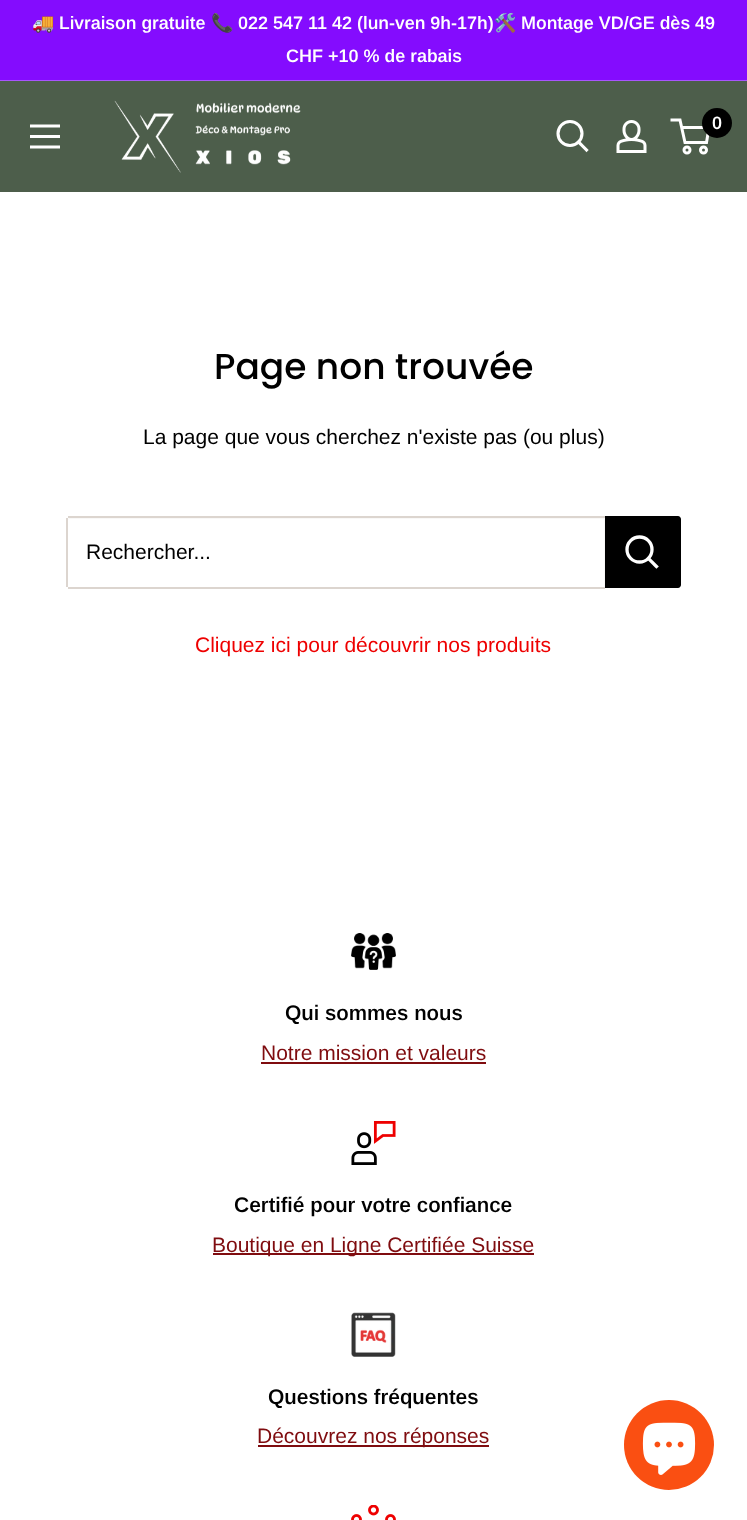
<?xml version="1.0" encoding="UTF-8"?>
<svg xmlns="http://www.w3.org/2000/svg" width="747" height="1520">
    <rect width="100%" height="100%" fill="#FFFFFF"/>
    <rect x="0" y="0" width="747" height="80" fill="#840CFE"/>
    <rect x="0" y="80" width="747" height="1" fill="#A955FE"/>
    <text x="32" y="29" font-family="Noto Color Emoji" font-size="18" font-weight="700" fill="#FFFFFF">🚚</text>
    <text x="59" y="29" font-family="Arimo" font-size="18" font-weight="600" fill="#FFFFFF">Livraison gratuite</text>
    <text x="211" y="29" font-family="Noto Color Emoji" font-size="18" font-weight="700" fill="#FFFFFF">📞</text>
    <text x="238" y="29" font-family="Arimo" font-size="18" font-weight="600" fill="#FFFFFF">022 547 11 42 (lun-ven 9h-17h)</text>
    <text x="494" y="29" font-family="Noto Color Emoji" font-size="18" font-weight="700" fill="#FFFFFF">🛠️</text>
    <text x="521" y="29" font-family="Arimo" font-size="18" font-weight="600" fill="#FFFFFF">Montage VD/GE dès 49</text>
    <text x="286" y="62" font-family="Arimo" font-size="18" font-weight="600" fill="#FFFFFF">CHF +10 % de rabais</text>
    <rect x="0" y="81" width="747" height="111" fill="#4D5E4B"/>
    <image x="30" y="124" width="30" height="25" href="img_01.png"/>
    <image x="114" y="100" width="187" height="73" href="img_02.png"/>
    <path d="M 586.5 150 L 578.5 142" fill="none" stroke="#FFFFFF" stroke-width="3.1" stroke-linecap="square"/>
    <circle cx="570" cy="133.5" r="12" fill="none" stroke="#FFFFFF" stroke-width="3.1"/>
    <image x="616" y="120" width="31" height="33" href="img_03.png"/>
    <circle cx="687" cy="150" r="3" fill="none" stroke="#FFFFFF" stroke-width="3"/>
    <circle cx="703.5" cy="150" r="3" fill="none" stroke="#FFFFFF" stroke-width="3"/>
    <path d="M 681.5 127.5 H 709 L 706.5 142.5 H 685 L 680 120 H 670.5" fill="none" stroke="#FFFFFF" stroke-width="3"/>
    <circle cx="717" cy="123" r="15" fill="#000000"/>
    <text x="712" y="129" font-family="Arimo" font-size="18" font-weight="600" fill="#FFFFFF">0</text>
    <text x="214" y="379" font-family="Poppins" font-size="36" font-weight="500" fill="#000000">Page non trouvée</text>
    <text x="143" y="444" font-family="Arimo" font-size="21" fill="#000000">La page que vous cherchez n'existe pas (ou plus)</text>
    <path d="M 69 519 H 604 V 587 H 605 V 518 H 70 C 68 518 68 519 68 520 Z" fill="#F9F8F7"/>
    <rect x="68" y="516" width="537" height="2" fill="#DCD5CF"/>
    <rect x="68" y="587" width="537" height="2" fill="#DCD5CF"/>
    <rect x="66" y="518" width="2" height="69" fill="#DCD5CF"/>
    <text x="86" y="559" font-family="Arimo" font-size="21" fill="#000000">Rechercher...</text>
    <path d="M 605 516 H 678 C 679.5 516 681 517.5 681 519 V 585 C 681 586.5 679.5 588 678 588 H 605 Z" fill="#000000"/>
    <path d="M 656.5 566.5 L 648.5 558.5" fill="none" stroke="#FFFFFF" stroke-width="3.3" stroke-linecap="square"/>
    <circle cx="639.5" cy="549.5" r="12.5" fill="none" stroke="#FFFFFF" stroke-width="3.3"/>
    <text x="195" y="652" font-family="Arimo" font-size="21" fill="#EE0000">Cliquez ici pour découvrir nos produits</text>
    <image x="351" y="933" width="45" height="37" href="img_04.png"/>
    <text x="285" y="1020" font-family="Arimo" font-size="21" font-weight="600" fill="#000000">Qui sommes nous</text>
    <text x="261" y="1060" font-family="Arimo" font-size="21" fill="#7F0C0F">Notre mission et valeurs</text>
    <rect x="261" y="1062" width="225" height="2" fill="#7F0C0F"/>
    <image x="351" y="1121" width="45" height="44" href="img_05.png"/>
    <text x="234" y="1212" font-family="Arimo" font-size="21" font-weight="600" fill="#000000">Certifié pour votre confiance</text>
    <rect x="213" y="1253" width="321" height="2" fill="#7F0C0F"/>
    <text x="212" y="1252" font-family="Arimo" font-size="21" fill="#7F0C0F">Boutique en Ligne Certifiée Suisse</text>
    <image x="351" y="1312" width="45" height="45" href="img_06.png"/>
    <text x="268" y="1404" font-family="Arimo" font-size="21" font-weight="600" fill="#000000">Questions fréquentes</text>
    <rect x="258" y="1445" width="231" height="2" fill="#7F0C0F"/>
    <text x="257" y="1443" font-family="Arimo" font-size="21" fill="#7F0C0F">Découvrez nos réponses</text>
    <image x="351" y="1505" width="45" height="15" href="img_07.png"/>
    <circle cx="669" cy="1445" r="45" fill="#FA4F12"/>
    <image x="642" y="1422" width="54" height="53" href="img_08.png"/>
</svg>
